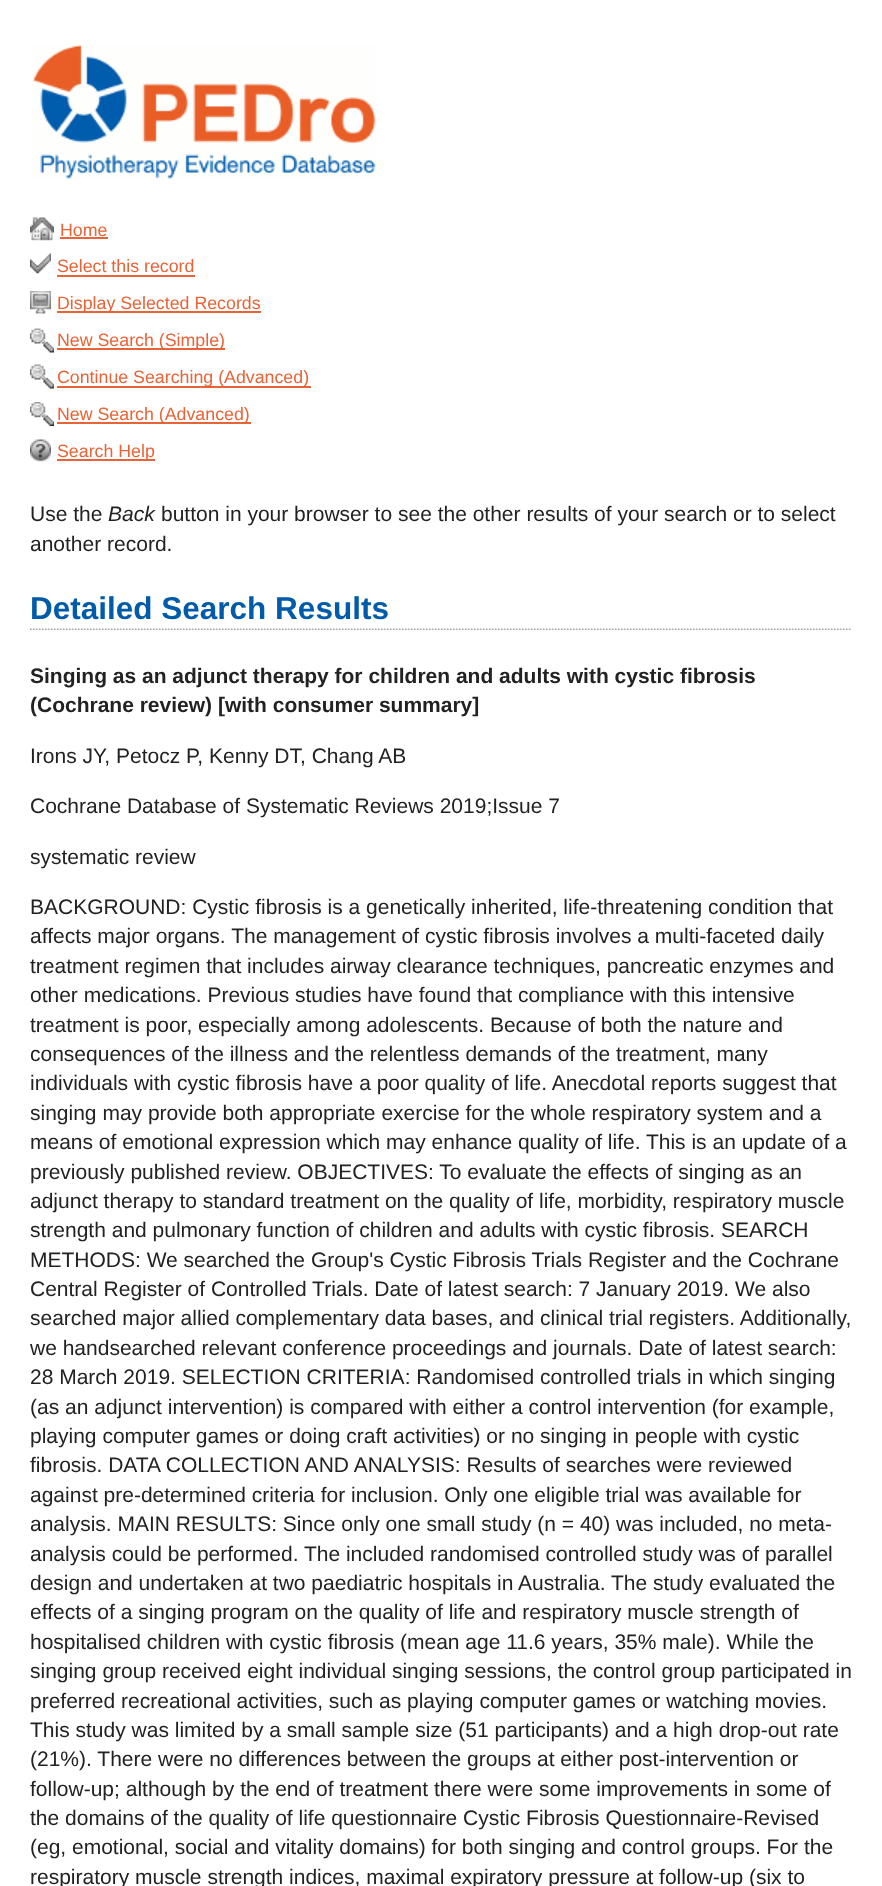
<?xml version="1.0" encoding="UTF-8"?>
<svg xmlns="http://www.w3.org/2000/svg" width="882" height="1886">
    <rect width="100%" height="100%" fill="#FFFFFF"/>
    <image x="32" y="44" width="344" height="135" href="img_01.png"/>
    <image x="30" y="217" width="24" height="24" href="img_02.png"/>
    <text x="60" y="236" font-family="Liberation Sans" font-size="17.8" fill="#E86335">Home</text>
    <rect x="60" y="237" width="48" height="2" fill="#E86335"/>
    <image x="30" y="253" width="21" height="21" href="img_03.png"/>
    <text x="57" y="272" font-family="Liberation Sans" font-size="17.8" fill="#E86335">Select this record</text>
    <rect x="57" y="275" width="138" height="2" fill="#E86335"/>
    <image x="30" y="291" width="21" height="23" href="img_04.png"/>
    <rect x="57" y="311" width="204" height="2" fill="#E86335"/>
    <text x="57" y="309" font-family="Liberation Sans" font-size="17.8" fill="#E86335">Display Selected Records</text>
    <image x="30" y="328" width="24" height="25" href="img_05.png"/>
    <rect x="57" y="348" width="168" height="2" fill="#E86335"/>
    <text x="57" y="346" font-family="Liberation Sans" font-size="17.8" fill="#E86335">New Search (Simple)</text>
    <image x="30" y="364" width="24" height="25" href="img_05.png"/>
    <rect x="57" y="386" width="254" height="2" fill="#E86335"/>
    <text x="57" y="383" font-family="Liberation Sans" font-size="17.8" fill="#E86335">Continue Searching (Advanced)</text>
    <image x="30" y="402" width="24" height="24" href="img_06.png"/>
    <rect x="57" y="422" width="194" height="2" fill="#E86335"/>
    <text x="57" y="420" font-family="Liberation Sans" font-size="17.8" fill="#E86335">New Search (Advanced)</text>
    <image x="30" y="439" width="21" height="23" href="img_07.png"/>
    <rect x="57" y="459" width="98" height="2" fill="#E86335"/>
    <text x="57" y="457" font-family="Liberation Sans" font-size="17.8" fill="#E86335">Search Help</text>
    <text x="30" y="521" font-family="Liberation Sans" font-size="21" fill="#222222">Use the</text>
    <text x="108" y="521" font-family="Liberation Sans" font-size="21" font-style="italic" fill="#222222">Back</text>
    <text x="161" y="521" font-family="Liberation Sans" font-size="21" fill="#222222">button in your browser to see the other results of your search or to select</text>
    <text x="30" y="551" font-family="Liberation Sans" font-size="21" fill="#222222">another record.</text>
    <image x="30" y="628" width="821" height="2" href="img_08.png"/>
    <text x="30" y="619" font-family="Liberation Sans" font-size="31.5" font-weight="700" fill="#005BAA">Detailed Search Results</text>
    <text font-family="Liberation Sans" font-size="21" font-weight="700" fill="#222222">
        <tspan x="30" y="683">Singing as an adjunct therapy for children and adults with cystic fibrosis</tspan>
        <tspan x="30" y="712">(Cochrane review) [with consumer summary]</tspan>
    </text>
    <text x="30" y="763" font-family="Liberation Sans" font-size="21" fill="#222222">Irons JY, Petocz P, Kenny DT, Chang AB</text>
    <text x="30" y="813" font-family="Liberation Sans" font-size="21" fill="#222222">Cochrane Database of Systematic Reviews 2019;Issue 7</text>
    <text x="30" y="864" font-family="Liberation Sans" font-size="21" fill="#222222">systematic review</text>
    <text font-family="Liberation Sans" font-size="21" fill="#222222">
        <tspan x="30" y="914">BACKGROUND: Cystic fibrosis is a genetically inherited, life-threatening condition that</tspan>
        <tspan x="30" y="943">affects major organs. The management of cystic fibrosis involves a multi-faceted daily</tspan>
        <tspan x="30" y="973">treatment regimen that includes airway clearance techniques, pancreatic enzymes and</tspan>
        <tspan x="30" y="1002">other medications. Previous studies have found that compliance with this intensive</tspan>
        <tspan x="30" y="1032">treatment is poor, especially among adolescents. Because of both the nature and</tspan>
        <tspan x="30" y="1061">consequences of the illness and the relentless demands of the treatment, many</tspan>
        <tspan x="30" y="1090">individuals with cystic fibrosis have a poor quality of life. Anecdotal reports suggest that</tspan>
        <tspan x="30" y="1120">singing may provide both appropriate exercise for the whole respiratory system and a</tspan>
        <tspan x="30" y="1149">means of emotional expression which may enhance quality of life. This is an update of a</tspan>
        <tspan x="30" y="1179">previously published review. OBJECTIVES: To evaluate the effects of singing as an</tspan>
        <tspan x="30" y="1208">adjunct therapy to standard treatment on the quality of life, morbidity, respiratory muscle</tspan>
        <tspan x="30" y="1237">strength and pulmonary function of children and adults with cystic fibrosis. SEARCH</tspan>
        <tspan x="30" y="1267">METHODS: We searched the Group's Cystic Fibrosis Trials Register and the Cochrane</tspan>
        <tspan x="30" y="1296">Central Register of Controlled Trials. Date of latest search: 7 January 2019. We also</tspan>
        <tspan x="30" y="1325">searched major allied complementary data bases, and clinical trial registers. Additionally,</tspan>
        <tspan x="30" y="1355">we handsearched relevant conference proceedings and journals. Date of latest search:</tspan>
        <tspan x="30" y="1384">28 March 2019. SELECTION CRITERIA: Randomised controlled trials in which singing</tspan>
        <tspan x="30" y="1414">(as an adjunct intervention) is compared with either a control intervention (for example,</tspan>
        <tspan x="30" y="1443">playing computer games or doing craft activities) or no singing in people with cystic</tspan>
        <tspan x="30" y="1472">fibrosis. DATA COLLECTION AND ANALYSIS: Results of searches were reviewed</tspan>
        <tspan x="30" y="1502">against pre-determined criteria for inclusion. Only one eligible trial was available for</tspan>
        <tspan x="30" y="1531">analysis. MAIN RESULTS: Since only one small study (n = 40) was included, no meta-</tspan>
        <tspan x="30" y="1561">analysis could be performed. The included randomised controlled study was of parallel</tspan>
        <tspan x="30" y="1590">design and undertaken at two paediatric hospitals in Australia. The study evaluated the</tspan>
        <tspan x="30" y="1619">effects of a singing program on the quality of life and respiratory muscle strength of</tspan>
        <tspan x="30" y="1649">hospitalised children with cystic fibrosis (mean age 11.6 years, 35% male). While the</tspan>
        <tspan x="30" y="1678">singing group received eight individual singing sessions, the control group participated in</tspan>
        <tspan x="30" y="1708">preferred recreational activities, such as playing computer games or watching movies.</tspan>
        <tspan x="30" y="1737">This study was limited by a small sample size (51 participants) and a high drop-out rate</tspan>
        <tspan x="30" y="1766">(21%). There were no differences between the groups at either post-intervention or</tspan>
        <tspan x="30" y="1796">follow-up; although by the end of treatment there were some improvements in some of</tspan>
        <tspan x="30" y="1825">the domains of the quality of life questionnaire Cystic Fibrosis Questionnaire-Revised</tspan>
        <tspan x="30" y="1854">(eg, emotional, social and vitality domains) for both singing and control groups. For the</tspan>
        <tspan x="30" y="1884">respiratory muscle strength indices, maximal expiratory pressure at follow-up (six to</tspan>
    </text>
</svg>
